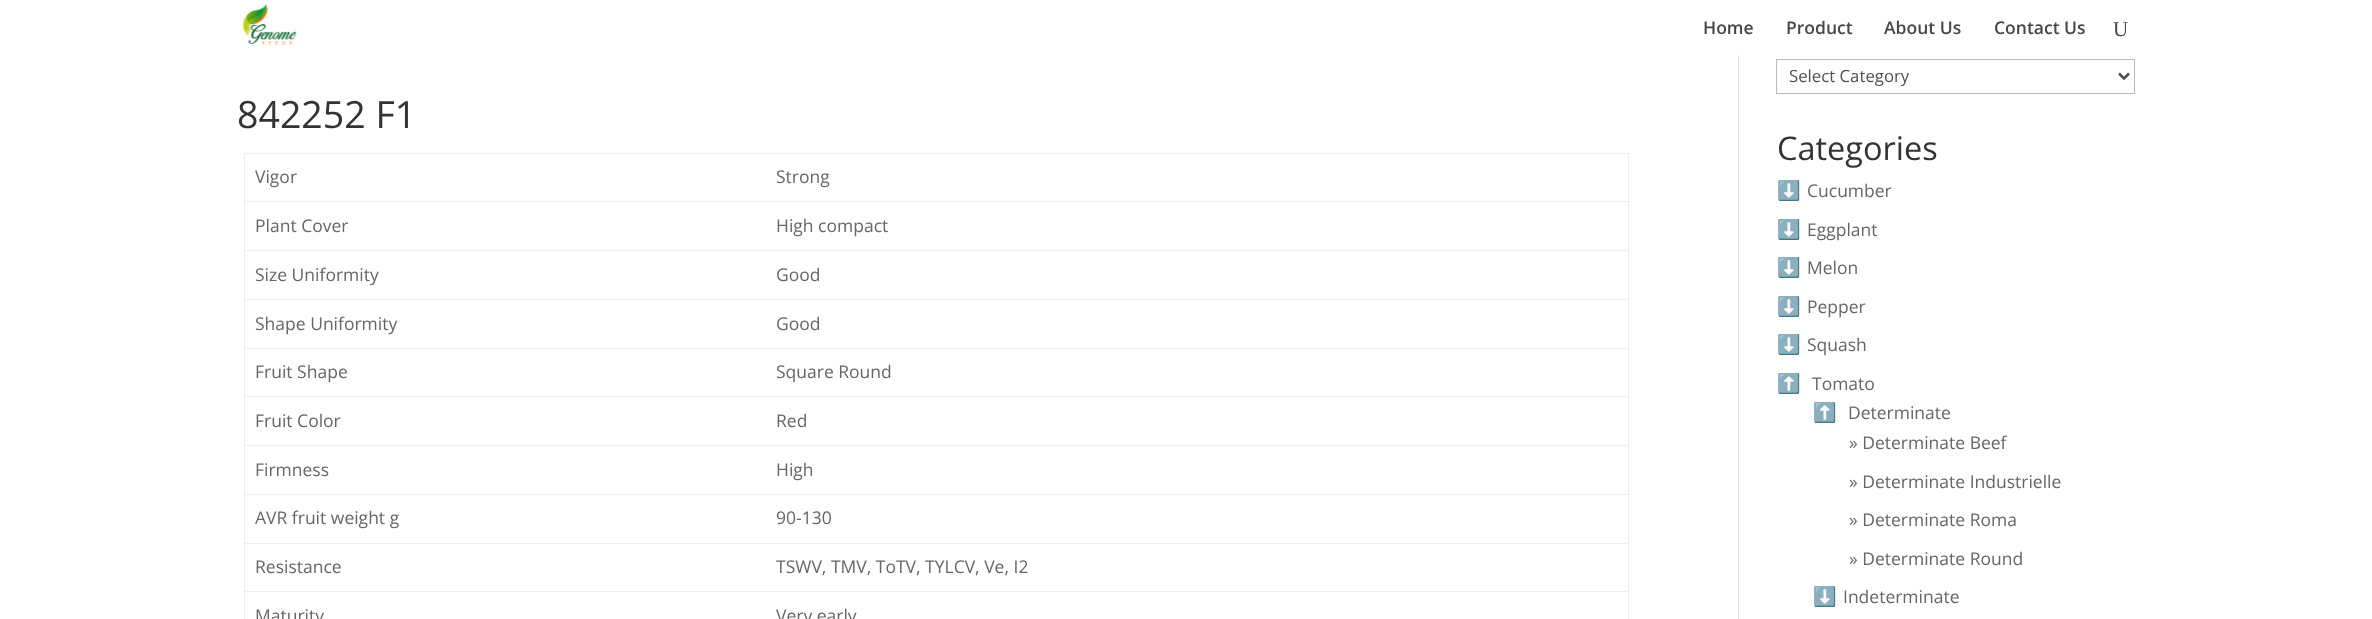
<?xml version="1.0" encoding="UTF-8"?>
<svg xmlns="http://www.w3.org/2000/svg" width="2372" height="619">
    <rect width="100%" height="100%" fill="#FFFFFF"/>
    <image x="242" y="3" width="55" height="42" href="img_01.png"/>
    <text x="1703" y="34" font-family="Open Sans" font-size="17.5" font-weight="600" fill="#474747">Home</text>
    <text x="1786" y="34" font-family="Open Sans" font-size="17.5" font-weight="600" fill="#474747">Product</text>
    <text x="1884" y="34" font-family="Open Sans" font-size="17.5" font-weight="600" fill="#474747">About Us</text>
    <text x="1994" y="34" font-family="Open Sans" font-size="17.5" font-weight="600" fill="#474747">Contact Us</text>
    <text x="2113" y="36" font-family="Liberation Serif" font-size="21" fill="#474747">U</text>
    <rect x="1738" y="55" width="1" height="564" fill="#E2E2E2"/>
    <text x="237" y="128" font-family="Open Sans" font-size="37.5" fill="#333333">842252 F1</text>
    <rect x="244" y="153" width="1385" height="1" fill="#EEEEEE"/>
    <rect x="1628" y="153" width="1" height="466" fill="#EEEEEE"/>
    <rect x="244" y="153" width="1" height="466" fill="#EEEEEE"/>
    <text x="255" y="183" font-family="Open Sans" font-size="17.5" fill="#666666">Vigor</text>
    <text x="776" y="183" font-family="Open Sans" font-size="17.5" fill="#666666">Strong</text>
    <text x="255" y="232" font-family="Open Sans" font-size="17.5" fill="#666666">Plant Cover</text>
    <rect x="244" y="201" width="1385" height="1" fill="#EEEEEE"/>
    <text x="776" y="232" font-family="Open Sans" font-size="17.5" fill="#666666">High compact</text>
    <text x="255" y="281" font-family="Open Sans" font-size="17.5" fill="#666666">Size Uniformity</text>
    <rect x="244" y="250" width="1385" height="1" fill="#EEEEEE"/>
    <text x="776" y="281" font-family="Open Sans" font-size="17.5" fill="#666666">Good</text>
    <text x="255" y="330" font-family="Open Sans" font-size="17.5" fill="#666666">Shape Uniformity</text>
    <rect x="244" y="299" width="1385" height="1" fill="#EEEEEE"/>
    <text x="776" y="330" font-family="Open Sans" font-size="17.5" fill="#666666">Good</text>
    <text x="255" y="378" font-family="Open Sans" font-size="17.5" fill="#666666">Fruit Shape</text>
    <rect x="244" y="348" width="1385" height="1" fill="#EEEEEE"/>
    <text x="776" y="378" font-family="Open Sans" font-size="17.5" fill="#666666">Square Round</text>
    <text x="255" y="427" font-family="Open Sans" font-size="17.5" fill="#666666">Fruit Color</text>
    <rect x="244" y="396" width="1385" height="1" fill="#EEEEEE"/>
    <text x="776" y="427" font-family="Open Sans" font-size="17.5" fill="#666666">Red</text>
    <text x="255" y="476" font-family="Open Sans" font-size="17.5" fill="#666666">Firmness</text>
    <rect x="244" y="445" width="1385" height="1" fill="#EEEEEE"/>
    <text x="776" y="476" font-family="Open Sans" font-size="17.5" fill="#666666">High</text>
    <text x="255" y="524" font-family="Open Sans" font-size="17.5" fill="#666666">AVR fruit weight g</text>
    <rect x="244" y="494" width="1385" height="1" fill="#EEEEEE"/>
    <text x="776" y="524" font-family="Open Sans" font-size="17.5" fill="#666666">90-130</text>
    <text x="255" y="573" font-family="Open Sans" font-size="17.5" fill="#666666">Resistance</text>
    <rect x="244" y="543" width="1385" height="1" fill="#EEEEEE"/>
    <text x="776" y="573" font-family="Open Sans" font-size="17.5" fill="#666666">TSWV, TMV, ToTV, TYLCV, Ve, I2</text>
    <text x="255" y="622" font-family="Open Sans" font-size="17.5" fill="#666666">Maturity</text>
    <rect x="244" y="591" width="1385" height="1" fill="#EEEEEE"/>
    <text x="776" y="622" font-family="Open Sans" font-size="17.5" fill="#666666">Very early</text>
    <rect x="1776.5" y="59.5" width="358" height="34" fill="none" stroke="#BBBBBB"/>
    <path d="M 2119 73.5 L 2124 78.5 L 2129 73.5" fill="none" stroke="#4E4E4E" stroke-width="2.5"/>
    <text x="1789" y="82" font-family="Open Sans" font-size="16.75" fill="#4E4E4E">Select Category</text>
    <text x="1777" y="160" font-family="Open Sans" font-size="32.5" fill="#333333">Categories</text>
    <text x="1777" y="197" font-family="Noto Color Emoji" font-size="19" fill="#666666">⬇️</text>
    <text x="1807" y="197" font-family="Open Sans" font-size="17.5" fill="#666666">Cucumber</text>
    <text x="1777" y="236" font-family="Noto Color Emoji" font-size="19" fill="#666666">⬇️</text>
    <text x="1807" y="236" font-family="Open Sans" font-size="17.5" fill="#666666">Eggplant</text>
    <text x="1777" y="274" font-family="Noto Color Emoji" font-size="19" fill="#666666">⬇️</text>
    <text x="1807" y="274" font-family="Open Sans" font-size="17.5" fill="#666666">Melon</text>
    <text x="1777" y="313" font-family="Noto Color Emoji" font-size="19" fill="#666666">⬇️</text>
    <text x="1807" y="313" font-family="Open Sans" font-size="17.5" fill="#666666">Pepper</text>
    <text x="1777" y="351" font-family="Noto Color Emoji" font-size="19" fill="#666666">⬇️</text>
    <text x="1807" y="351" font-family="Open Sans" font-size="17.5" fill="#666666">Squash</text>
    <text x="1777" y="390" font-family="Noto Color Emoji" font-size="19" fill="#666666">⬆️</text>
    <text x="1812" y="390" font-family="Open Sans" font-size="17.5" fill="#666666">Tomato</text>
    <text x="1813" y="419" font-family="Noto Color Emoji" font-size="19" fill="#666666">⬆️</text>
    <text x="1848" y="419" font-family="Open Sans" font-size="17.5" fill="#666666">Determinate</text>
    <text x="1849" y="449" font-family="Open Sans" font-size="17.5" fill="#666666">» Determinate Beef</text>
    <text x="1849" y="488" font-family="Open Sans" font-size="17.5" fill="#666666">» Determinate Industrielle</text>
    <text x="1849" y="526" font-family="Open Sans" font-size="17.5" fill="#666666">» Determinate Roma</text>
    <text x="1849" y="565" font-family="Open Sans" font-size="17.5" fill="#666666">» Determinate Round</text>
    <text x="1813" y="603" font-family="Noto Color Emoji" font-size="19" fill="#666666">⬇️</text>
    <text x="1843" y="603" font-family="Open Sans" font-size="17.5" fill="#666666">Indeterminate</text>
</svg>
